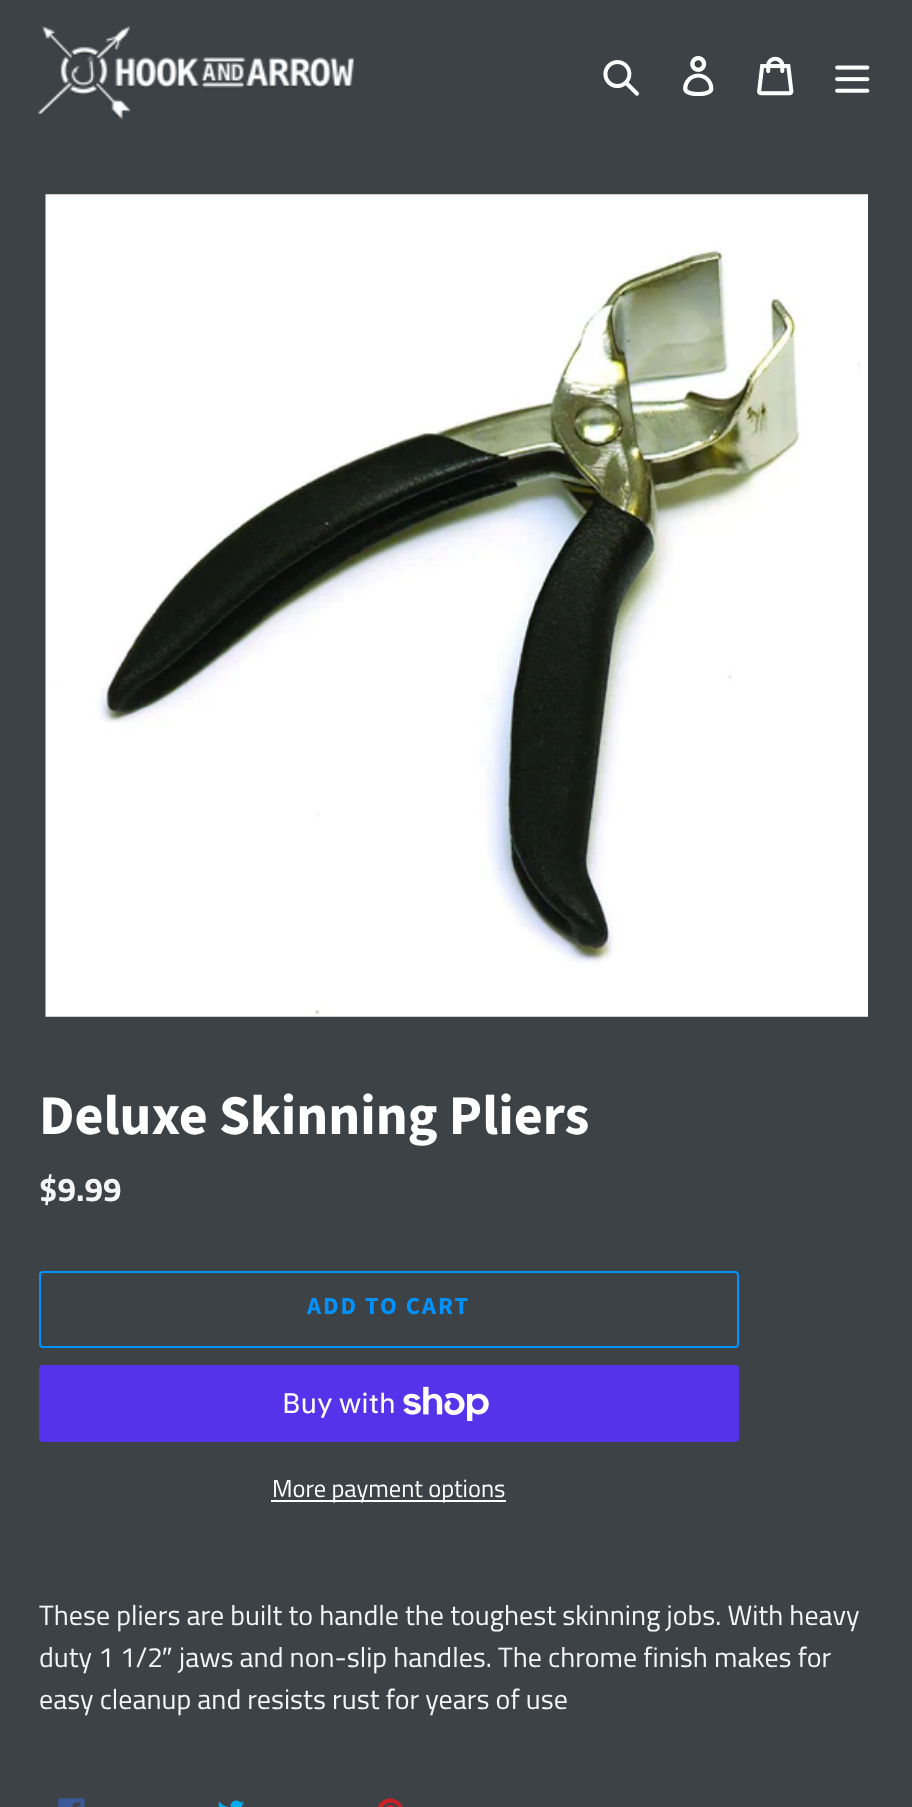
<?xml version="1.0" encoding="UTF-8"?>
<svg xmlns="http://www.w3.org/2000/svg" width="912" height="1807">
    <rect width="100%" height="100%" fill="#3D4246"/>
    <image x="38" y="26" width="316" height="95" href="img_01.png"/>
    <image x="603" y="60" width="36" height="36" href="img_02.png"/>
    <image x="683" y="56" width="31" height="40" href="img_03.png"/>
    <image x="757" y="56" width="37" height="40" href="img_04.png"/>
    <image x="835" y="65" width="35" height="28" href="img_05.png"/>
    <image x="45" y="194" width="823" height="823" href="img_06.png"/>
    <text x="39" y="1134" font-family="Source Sans Pro" font-size="56" font-weight="700" fill="#FFFFFF">Deluxe Skinning Pliers</text>
    <text x="39" y="1201" font-family="Titillium Web" font-size="33" font-weight="700" fill="#F5F5F5">$9.99</text>
    <rect x="40" y="1272" width="698" height="75" rx="3" fill="none" stroke="#0093FF" stroke-width="2"/>
    <text x="307" y="1314" font-family="Source Sans Pro" font-size="24.5" font-weight="700" letter-spacing="2" fill="#0093FF">ADD TO CART</text>
    <rect x="39" y="1365" width="700" height="77" rx="4" fill="#5433EB"/>
    <text x="282" y="1413" font-family="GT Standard" font-size="28" fill="#FFFFFF">Buy with</text>
    <image x="403" y="1386" width="86" height="35" href="img_07.png"/>
    <rect x="271" y="1500" width="235" height="2" fill="#FFFFFF"/>
    <text x="272" y="1497" font-family="Titillium Web" font-size="24.5" fill="#FFFFFF">More payment options</text>
    <text font-family="Titillium Web" font-size="28" fill="#F5F5F5">
        <tspan x="39" y="1625">These pliers are built to handle the toughest skinning jobs. With heavy</tspan>
        <tspan x="39" y="1667">duty 1 1/2</tspan>
    </text>
    <text x="162" y="1667" font-family="Liberation Sans" font-size="28" fill="#F5F5F5">″</text>
    <text x="179" y="1667" font-family="Titillium Web" font-size="28" fill="#F5F5F5">jaws and non-slip handles. The chrome finish makes for</text>
    <text x="39" y="1709" font-family="Titillium Web" font-size="28" fill="#F5F5F5">easy cleanup and resists rust for years of use</text>
    <image x="58" y="1798" width="27" height="9" href="img_08.png"/>
    <image x="218" y="1800" width="27" height="7" href="img_09.png"/>
    <image x="378" y="1798" width="25" height="9" href="img_10.png"/>
</svg>
